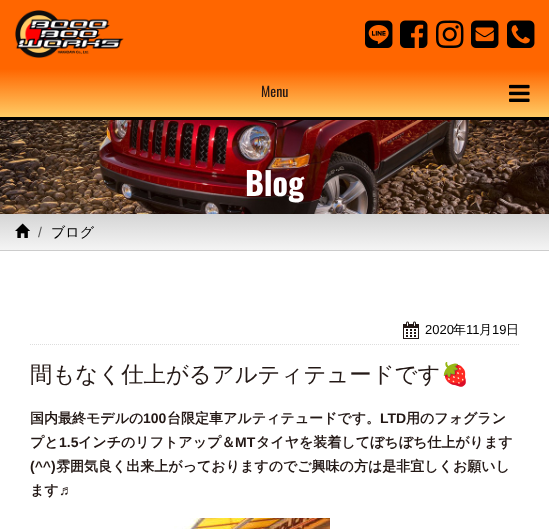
<?xml version="1.0" encoding="UTF-8"?>
<svg xmlns="http://www.w3.org/2000/svg" width="549" height="529">
    <defs>
        <linearGradient id="g1" gradientUnits="userSpaceOnUse" x1="275" y1="69" x2="275" y2="117"><stop offset="0" stop-color="#FF6600"/><stop offset="1" stop-color="#FFCC66"/></linearGradient>
        <linearGradient id="g2" gradientUnits="userSpaceOnUse" x1="275" y1="214" x2="275" y2="250"><stop offset="0" stop-color="#D5D5D5"/><stop offset="1" stop-color="#F4F4F4"/></linearGradient>
    </defs>
    <rect width="100%" height="100%" fill="#FFFFFF"/>
    <rect x="0" y="0" width="549" height="69" fill="#FF6600"/>
    <image x="15" y="10" width="109" height="48" href="img_01.png"/>
    <image x="365" y="20" width="28" height="28" href="img_02.png"/>
    <image x="400" y="20" width="28" height="28" href="img_03.png"/>
    <image x="436" y="20" width="28" height="28" href="img_04.png"/>
    <image x="471" y="20" width="28" height="28" href="img_05.png"/>
    <image x="507" y="20" width="28" height="28" href="img_06.png"/>
    <rect x="0" y="117" width="549" height="3" fill="#000000"/>
    <rect x="0" y="69" width="549" height="48" fill="url(#g1)"/>
    <text x="261" y="97" font-family="Oswald" font-size="14" fill="#231815">Menu</text>
    <image x="509" y="84" width="21" height="18" href="img_07.png"/>
    <image x="0" y="120" width="549" height="94" href="img_08.png"/>
    <text x="245" y="196" font-family="Oswald" font-size="32" font-weight="700" fill="#FFFFFF">Blog</text>
    <rect x="0" y="214" width="549" height="36" fill="url(#g2)"/>
    <rect x="0" y="250" width="549" height="1" fill="#CCCCCC"/>
    <image x="15" y="223" width="15" height="15" href="img_09.png"/>
    <text x="38" y="237" font-family="Liberation Sans" font-size="14" fill="#555555">/</text>
    <text x="51" y="237" font-family="WenQuanYi Zen Hei" font-size="14" font-weight="500" fill="#000000">ブログ</text>
    <path d="M 30 344.5 H 519" fill="none" stroke="#DDDDDD" stroke-dasharray="1 1"/>
    <image x="403" y="321" width="16" height="18" href="img_10.png"/>
    <text x="425" y="334" font-family="Liberation Sans" font-size="13" fill="#000000">2020</text>
    <text x="453" y="334" font-family="WenQuanYi Zen Hei" font-size="13" font-weight="500" fill="#000000">年</text>
    <text x="466" y="334" font-family="Liberation Sans" font-size="13" fill="#000000">11</text>
    <text x="479" y="334" font-family="WenQuanYi Zen Hei" font-size="13" font-weight="500" fill="#000000">月</text>
    <text x="492" y="334" font-family="Liberation Sans" font-size="13" fill="#000000">19</text>
    <text x="506" y="334" font-family="WenQuanYi Zen Hei" font-size="13" font-weight="500" fill="#000000">日</text>
    <text x="30" y="382" font-family="WenQuanYi Zen Hei" font-size="22.4" font-weight="500" fill="#231815">間もなく仕上がるアルティテュードです</text>
    <text x="441" y="382" font-family="Noto Color Emoji" font-size="22.4" fill="#231815">🍓</text>
    <text x="30" y="423" font-family="WenQuanYi Zen Hei" font-size="14" font-weight="700" fill="#231815">国内最終モデルの</text>
    <text x="143" y="423" font-family="Liberation Sans" font-size="14" font-weight="700" fill="#231815">100</text>
    <text x="167" y="423" font-family="WenQuanYi Zen Hei" font-size="14" font-weight="700" fill="#231815">台限定車アルティテュードです。</text>
    <text x="380" y="423" font-family="Liberation Sans" font-size="14" font-weight="700" fill="#231815">LTD</text>
    <text x="406" y="423" font-family="WenQuanYi Zen Hei" font-size="14" font-weight="700" fill="#231815">用のフォグラン</text>
    <text x="30" y="447" font-family="WenQuanYi Zen Hei" font-size="14" font-weight="700" fill="#231815">プと</text>
    <text x="59" y="447" font-family="Liberation Sans" font-size="14" font-weight="700" fill="#231815">1.5</text>
    <text x="78" y="447" font-family="WenQuanYi Zen Hei" font-size="14" font-weight="700" fill="#231815">インチのリフトアップ＆</text>
    <text x="235" y="447" font-family="Liberation Sans" font-size="14" font-weight="700" fill="#231815">MT</text>
    <text x="256" y="447" font-family="WenQuanYi Zen Hei" font-size="14" font-weight="700" fill="#231815">タイヤを装着してぼちぼち仕上がります</text>
    <text x="30" y="471" font-family="Liberation Sans" font-size="14" font-weight="700" fill="#231815">(^^)</text>
    <text x="56" y="471" font-family="WenQuanYi Zen Hei" font-size="14" font-weight="700" fill="#231815">雰囲気良く出来上がっておりますのでご興味の方は是非宜しくお願いし</text>
    <text x="30" y="495" font-family="WenQuanYi Zen Hei" font-size="14" font-weight="700" fill="#231815">ます</text>
    <text x="59" y="495" font-family="Liberation Sans" font-size="14" font-weight="700" fill="#231815">♬</text>
    <image x="174" y="518" width="156" height="11" href="img_11.png"/>
</svg>
